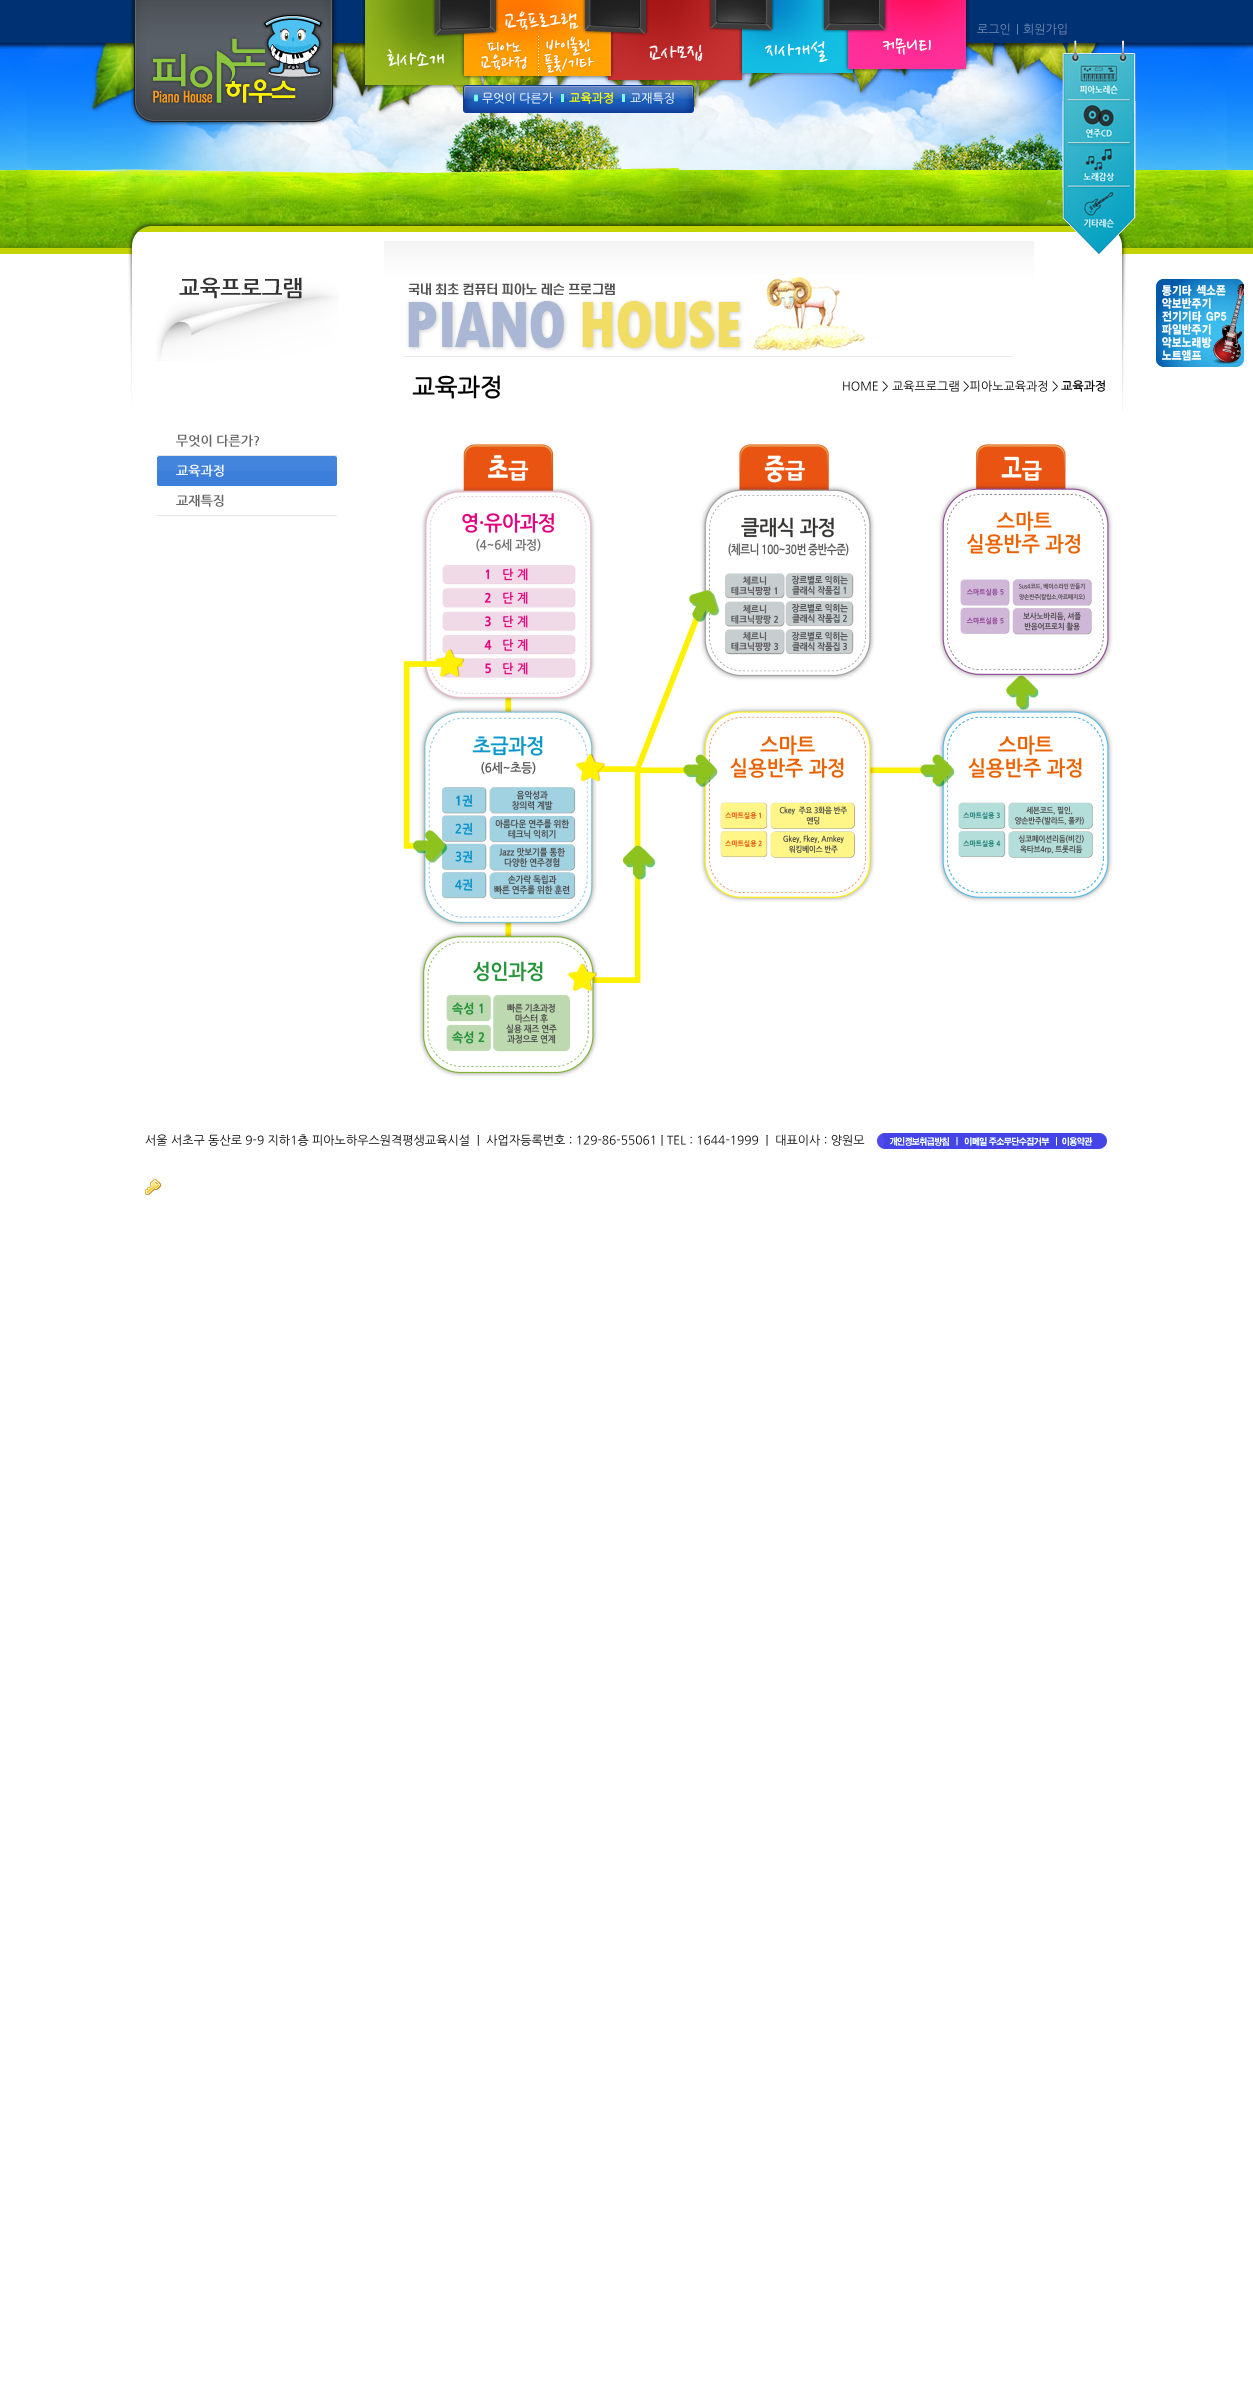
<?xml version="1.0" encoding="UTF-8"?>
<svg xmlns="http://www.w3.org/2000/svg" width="1253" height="2397">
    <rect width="100%" height="100%" fill="#FFFFFF"/>
    <image x="0" y="0" width="1253" height="43" href="img_01.png"/>
    <image x="0" y="43" width="1253" height="292" href="img_02.png"/>
    <image x="127" y="42" width="1000" height="177" href="img_03.png"/>
    <image x="130" y="0" width="207" height="126" href="img_04.png"/>
    <text x="977" y="33" font-family="NanumGothic" font-size="12" fill="#708BB0">로그인</text>
    <text x="1016" y="33" font-family="NanumGothic" font-size="12" fill="#708BB0">|</text>
    <text x="1023" y="33" font-family="NanumGothic" font-size="12" fill="#708BB0">회원가입</text>
    <image x="362" y="0" width="109" height="88" href="img_05.png"/>
    <image x="539" y="0" width="66" height="80" href="img_06.png"/>
    <image x="605" y="0" width="134" height="84" href="img_07.png"/>
    <image x="739" y="0" width="109" height="84" href="img_08.png"/>
    <image x="848" y="0" width="122" height="77" href="img_09.png"/>
    <image x="471" y="0" width="68" height="84" href="img_10.png"/>
    <image x="463" y="85" width="11" height="28" href="img_11.png"/>
    <image x="474" y="85" width="87" height="28" href="img_12.png"/>
    <image x="474" y="94" width="4" height="8" href="img_13.png"/>
    <text x="482" y="102" font-family="NanumGothic" font-size="12" fill="#FFFFFF">무엇이 다른가</text>
    <image x="561" y="85" width="61" height="28" href="img_14.png"/>
    <rect x="561" y="94" width="3" height="8" fill="#76FFEA"/>
    <text x="569" y="102" font-family="NanumGothic" font-size="12" font-weight="700" fill="#FFFF00">교육과정</text>
    <image x="622" y="85" width="61" height="28" href="img_14.png"/>
    <rect x="622" y="94" width="3" height="8" fill="#76FFEA"/>
    <text x="630" y="102" font-family="NanumGothic" font-size="12" fill="#FFFFFF">교재특징</text>
    <image x="683" y="85" width="11" height="28" href="img_15.png"/>
    <image x="1062" y="40" width="74" height="61" href="img_16.png"/>
    <image x="1062" y="101" width="74" height="44" href="img_17.png"/>
    <image x="1062" y="145" width="74" height="43" href="img_18.png"/>
    <image x="128" y="221" width="999" height="190" href="img_21.png"/>
    <image x="1062" y="188" width="74" height="67" href="img_19.png"/>
    <image x="1156" y="279" width="88" height="88" href="img_20.png"/>
    <image x="157" y="277" width="182" height="84" href="img_22.png"/>
    <image x="384" y="241" width="650" height="116" href="img_23.png"/>
    <text x="412" y="395" font-family="NanumGothic" font-size="24" font-weight="700" fill="#000000">교육과정</text>
    <text x="842" y="390" font-family="NanumGothic" font-size="12" fill="#000000">HOME &gt; 교육프로그램 &gt;피아노교육과정 &gt;</text>
    <text x="1061" y="390" font-family="NanumGothic" font-size="12" font-weight="700" fill="#000000">교육과정</text>
    <image x="157" y="434" width="180" height="22" href="img_24.png"/>
    <image x="157" y="456" width="180" height="30" href="img_25.png"/>
    <image x="157" y="494" width="180" height="22" href="img_26.png"/>
    <image x="403" y="444" width="710" height="633" href="img_27.png"/>
    <text x="145" y="1144" font-family="NanumGothic" font-size="12" fill="#000000" xml:space="preserve">서울 서초구 동산로 9-9 지하1층 피아노하우스원격평생교육시설  |  사업자등록번호 : 129-86-55061 | TEL : 1644-1999  |  대표이사 : 양원모</text>
    <image x="877" y="1133" width="81" height="16" href="img_28.png"/>
    <image x="958" y="1133" width="99" height="16" href="img_29.png"/>
    <image x="1057" y="1133" width="50" height="16" href="img_30.png"/>
    <image x="145" y="1179" width="16" height="16" href="img_31.png"/>
</svg>
